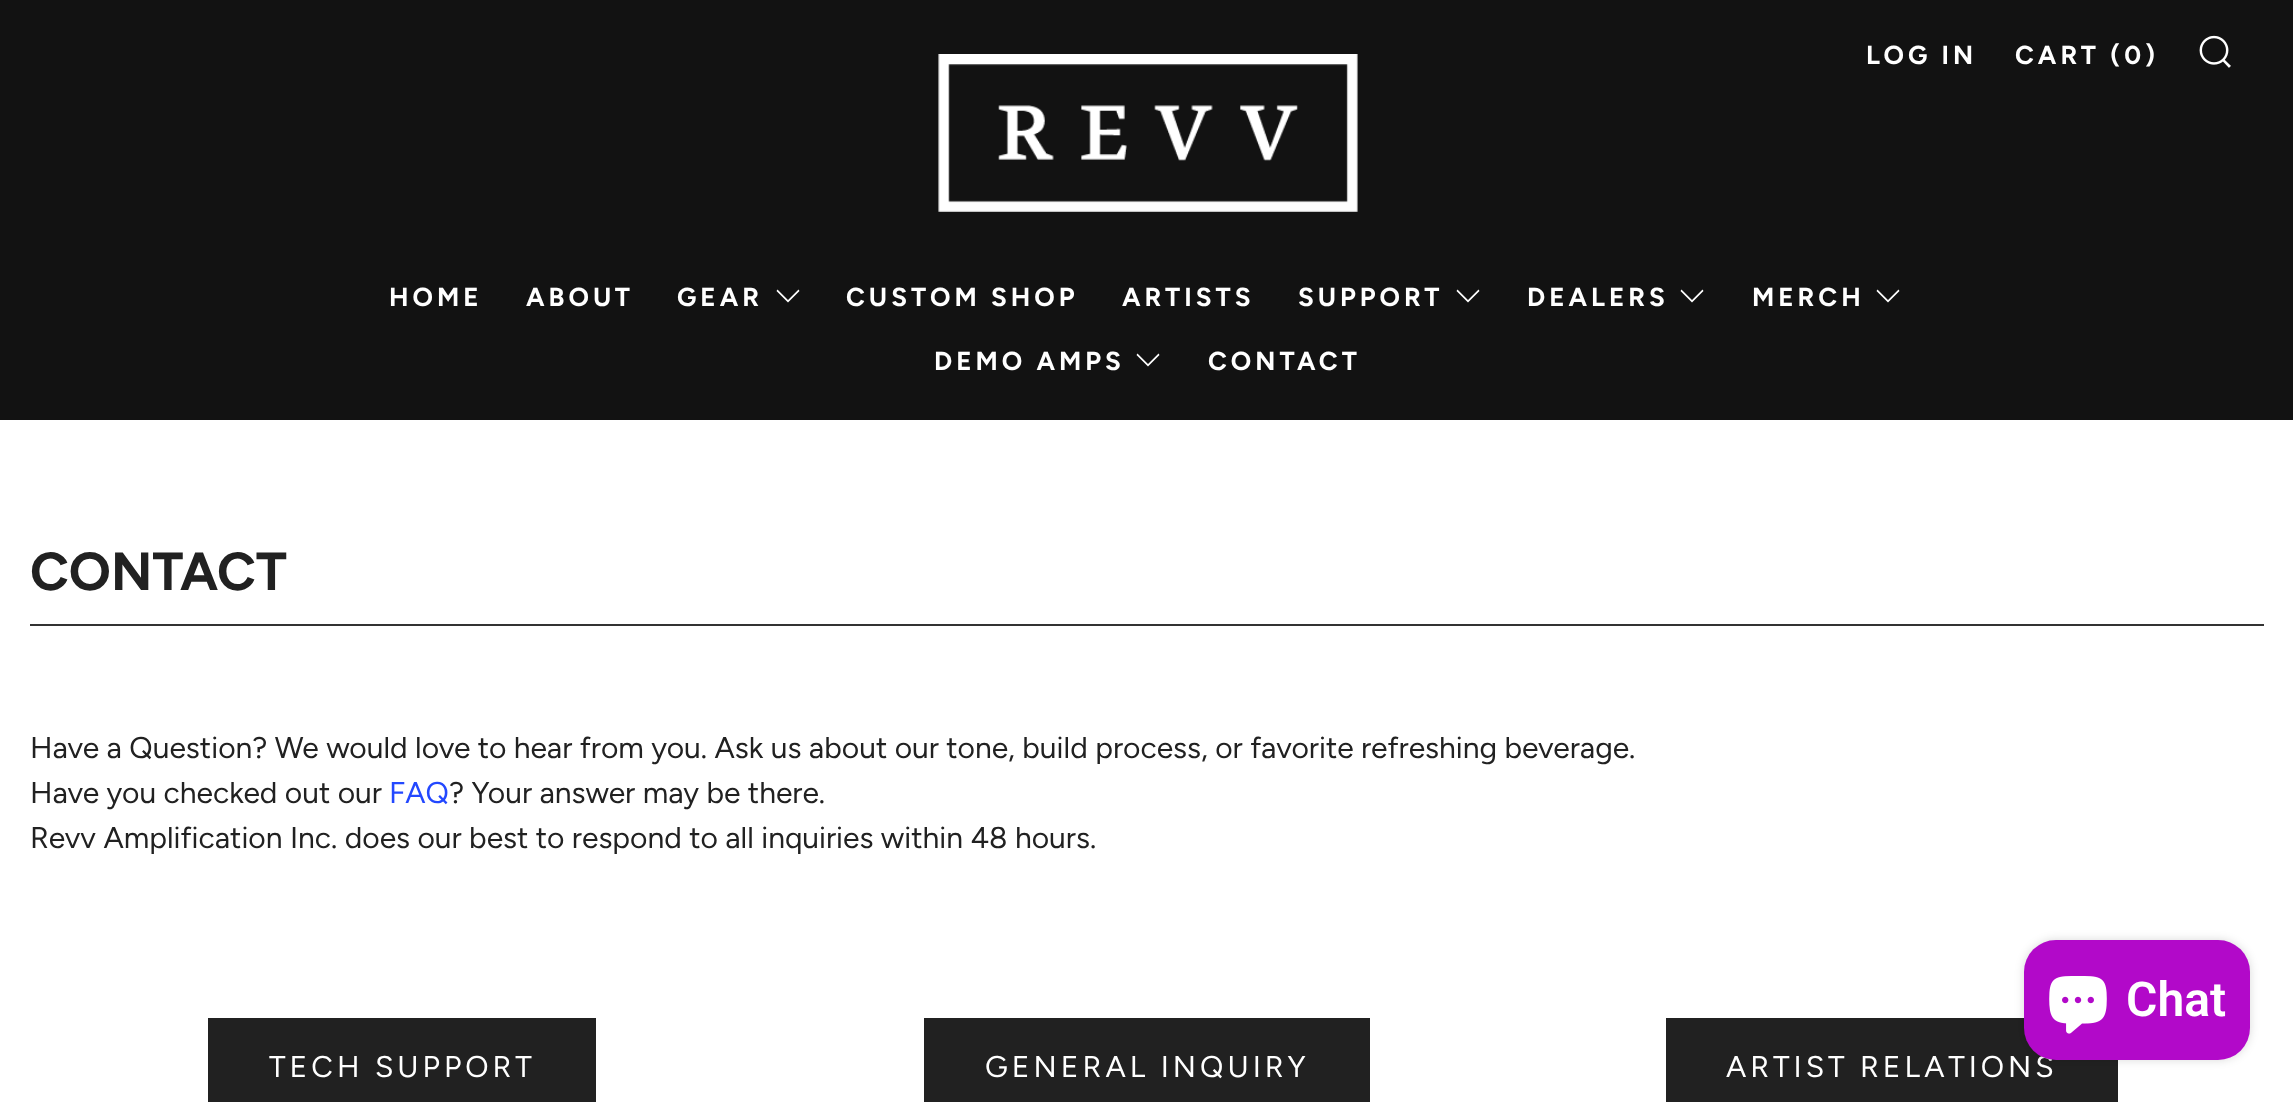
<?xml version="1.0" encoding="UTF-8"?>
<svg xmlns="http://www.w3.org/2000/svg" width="2293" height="1102">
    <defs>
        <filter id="blur1" x="-50%" y="-200%" width="200%" height="500%"><feGaussianBlur stdDeviation="5"/></filter>
    </defs>
    <rect width="100%" height="100%" fill="#FFFFFF"/>
    <rect x="0" y="0" width="2293" height="420" fill="#121212"/>
    <text x="1866" y="64" font-family="Figtree" font-size="26" font-weight="700" letter-spacing="4" fill="#FFFFFF">LOG IN</text>
    <text x="2015" y="64" font-family="Figtree" font-size="26" font-weight="700" letter-spacing="4" fill="#FFFFFF">CART (0)</text>
    <image x="2199" y="35" width="32" height="33" href="img_01.png"/>
    <text x="389" y="306" font-family="Figtree" font-size="26" font-weight="700" letter-spacing="4" fill="#FFFFFF">HOME</text>
    <text x="526" y="306" font-family="Figtree" font-size="26" font-weight="700" letter-spacing="4" fill="#FFFFFF">ABOUT</text>
    <text x="677" y="306" font-family="Figtree" font-size="26" font-weight="700" letter-spacing="4" fill="#FFFFFF">GEAR</text>
    <path d="M 777.5 289.5 L 776.5 291 L 788 302.5 L 799.5 291 L 798.5 289.5 L 788 300 Z" fill="#FFFFFF"/>
    <text x="846" y="306" font-family="Figtree" font-size="26" font-weight="700" letter-spacing="4" fill="#FFFFFF">CUSTOM SHOP</text>
    <text x="1122" y="306" font-family="Figtree" font-size="26" font-weight="700" letter-spacing="4" fill="#FFFFFF">ARTISTS</text>
    <text x="1298" y="306" font-family="Figtree" font-size="26" font-weight="700" letter-spacing="4" fill="#FFFFFF">SUPPORT</text>
    <path d="M 1457.5 289.5 L 1456.5 291 L 1468 302.5 L 1479.5 291 L 1478.5 289.5 L 1468 300 Z" fill="#FFFFFF"/>
    <text x="1527" y="306" font-family="Figtree" font-size="26" font-weight="700" letter-spacing="4" fill="#FFFFFF">DEALERS</text>
    <path d="M 1681.5 289.5 L 1680.5 291 L 1692 302.5 L 1703.5 291 L 1702.5 289.5 L 1692 300 Z" fill="#FFFFFF"/>
    <text x="1752" y="306" font-family="Figtree" font-size="26" font-weight="700" letter-spacing="4" fill="#FFFFFF">MERCH</text>
    <path d="M 1877.5 289.5 L 1876.5 291 L 1888 302.5 L 1899.5 291 L 1898.5 289.5 L 1888 300 Z" fill="#FFFFFF"/>
    <text x="934" y="370" font-family="Figtree" font-size="26" font-weight="700" letter-spacing="4" fill="#FFFFFF">DEMO AMPS</text>
    <path d="M 1137.5 353.5 L 1136.5 355 L 1148 366.5 L 1159.5 355 L 1158.5 353.5 L 1148 364 Z" fill="#FFFFFF"/>
    <text x="1208" y="370" font-family="Figtree" font-size="26" font-weight="700" letter-spacing="4" fill="#FFFFFF">CONTACT</text>
    <image x="938" y="54" width="420" height="158" href="img_02.png"/>
    <text x="30" y="590" font-family="Figtree" font-size="53.5" font-weight="700" fill="#212121">CONTACT</text>
    <rect x="30" y="624" width="2234" height="2" fill="#333333"/>
    <text font-family="Figtree" font-size="30" fill="#212121">
        <tspan x="30" y="758">Have a Question? We would love to hear from you. Ask us about our tone, build process, or favorite refreshing beverage.</tspan>
        <tspan x="30" y="803">Have you checked out our</tspan>
    </text>
    <text x="389" y="803" font-family="Figtree" font-size="30" fill="#2348FF">FAQ</text>
    <text x="449" y="803" font-family="Figtree" font-size="30" fill="#212121">? Your answer may be there.</text>
    <text x="30" y="848" font-family="Figtree" font-size="30" fill="#212121">Revv Amplification Inc. does our best to respond to all inquiries within 48 hours.</text>
    <rect x="208" y="1018" width="388" height="84" fill="#212121"/>
    <text x="269" y="1077" font-family="Figtree" font-size="30" letter-spacing="4" fill="#FFFFFF">TECH SUPPORT</text>
    <rect x="924" y="1018" width="446" height="84" fill="#212121"/>
    <text x="985" y="1077" font-family="Figtree" font-size="30" letter-spacing="4" fill="#FFFFFF">GENERAL INQUIRY</text>
    <rect x="1666" y="1018" width="452" height="84" fill="#212121"/>
    <text x="1726" y="1077" font-family="Figtree" font-size="30" letter-spacing="4" fill="#FFFFFF">ARTIST RELATIONS</text>
    <rect x="2024" y="940" width="226" height="120" rx="32" fill="#000000" fill-opacity="0.15" filter="url(#blur1)"/>
    <rect x="2024" y="940" width="226" height="120" rx="32" fill="#B209C9"/>
    <image x="2049" y="976" width="58" height="58" href="img_03.png"/>
    <text x="2126" y="1016" font-family="Roboto" font-size="48" font-weight="600" fill="#FFFFFF">Chat</text>
</svg>
